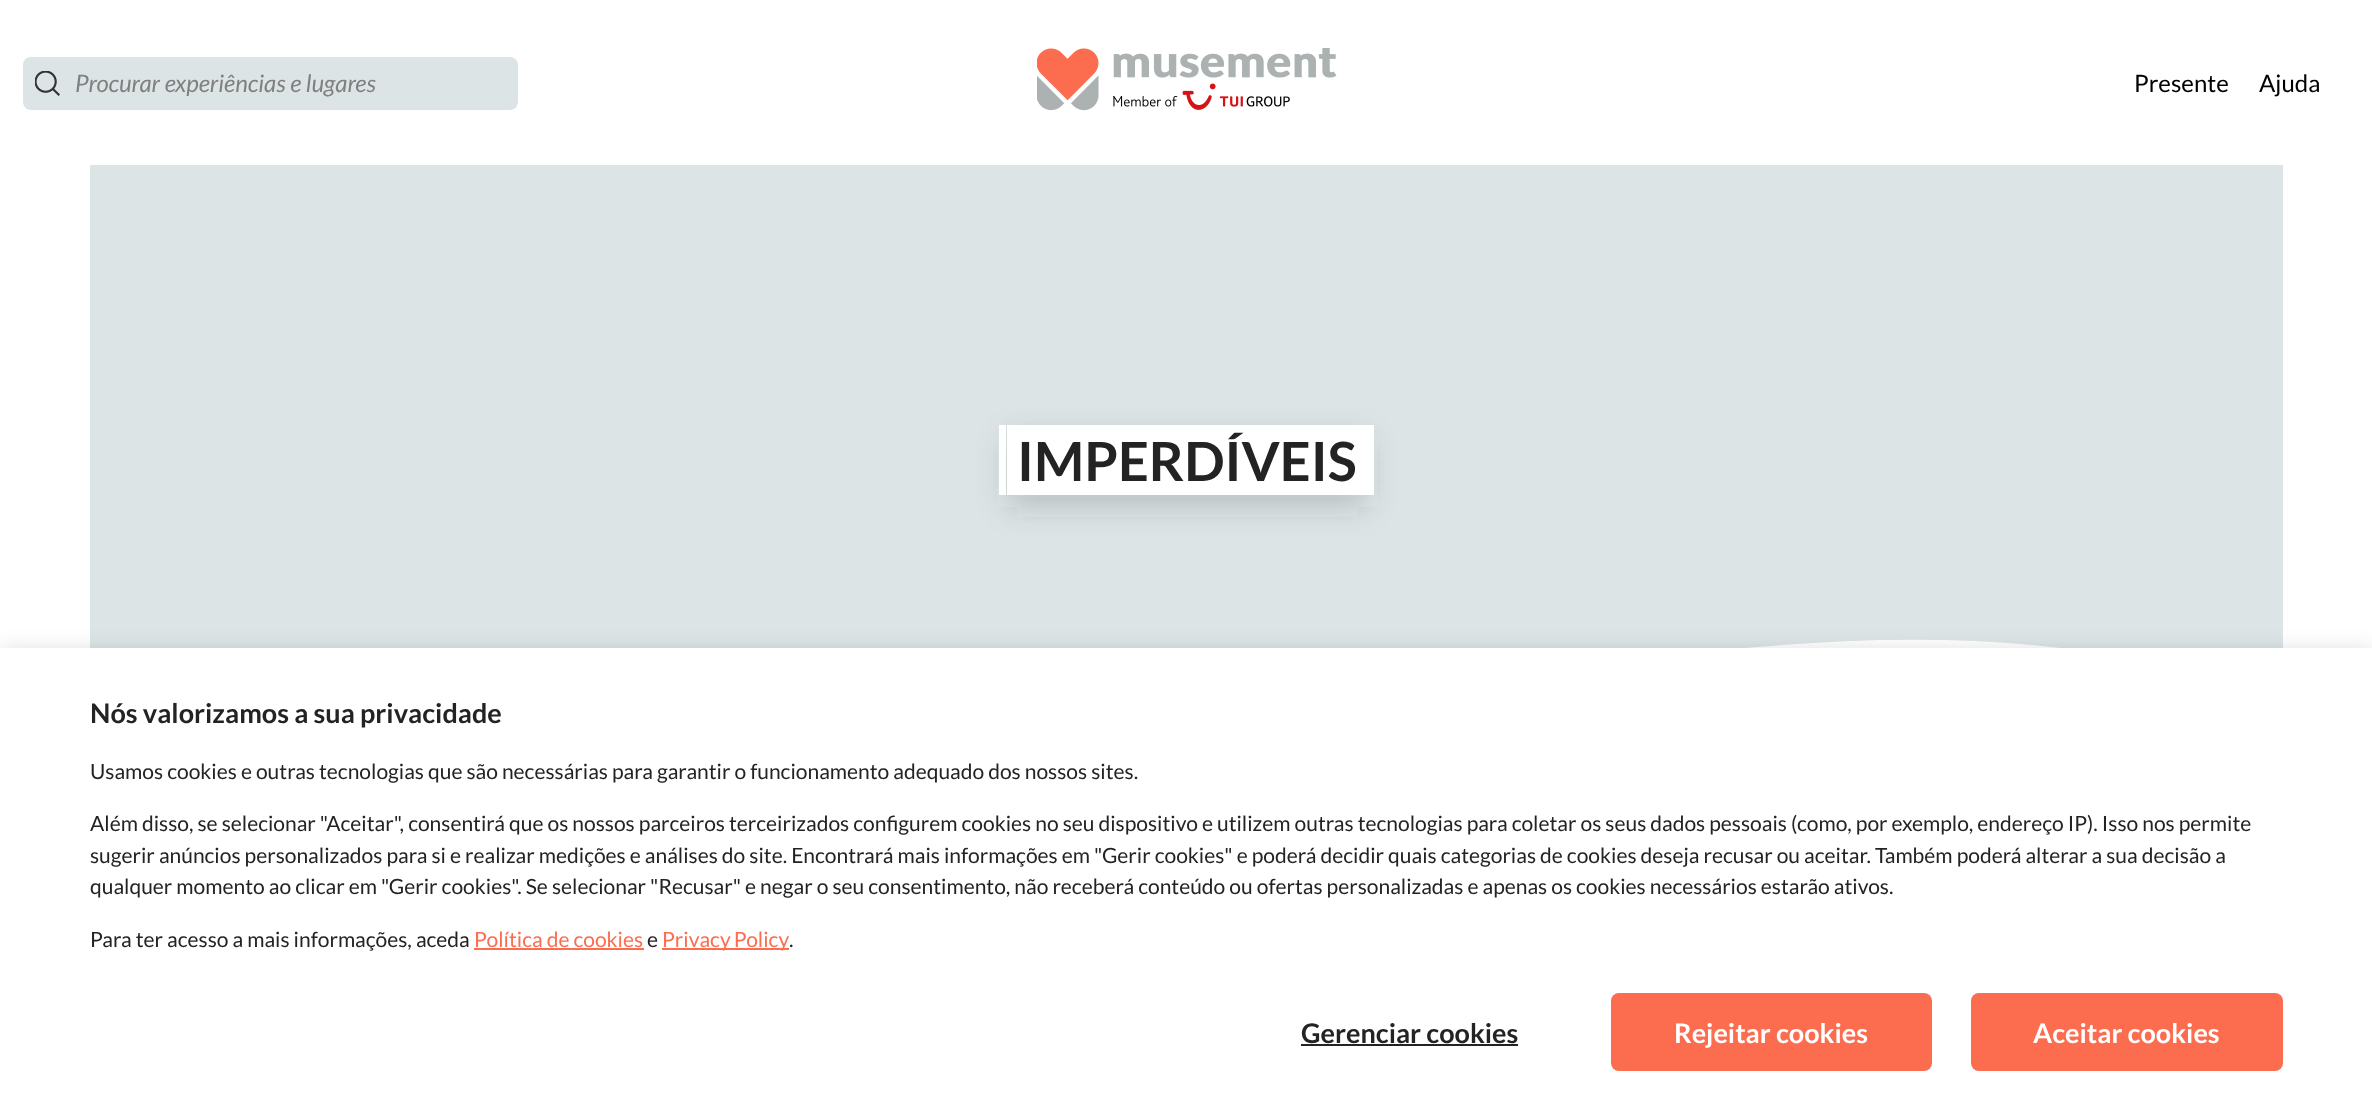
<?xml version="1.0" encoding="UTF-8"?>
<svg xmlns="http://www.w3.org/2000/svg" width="2372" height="1119">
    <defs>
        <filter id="blur1" x="-50%" y="-200%" width="200%" height="500%"><feGaussianBlur stdDeviation="15"/></filter>
        <filter id="blur2" x="-50%" y="-200%" width="200%" height="500%"><feGaussianBlur stdDeviation="11"/></filter>
    </defs>
    <rect width="100%" height="100%" fill="#FFFFFF"/>
    <rect x="23" y="57" width="495" height="53" rx="8" fill="#DCE4E6"/>
    <image x="35" y="71" width="25" height="25" href="img_01.png"/>
    <text x="75" y="92" font-family="Lato" font-size="24" font-style="italic" fill="#808080">Procurar experiências e lugares</text>
    <image x="1037" y="48" width="300" height="63" href="img_02.png"/>
    <text x="2134" y="92" font-family="Lato" font-size="24" fill="#000000">Presente</text>
    <text x="2259" y="92" font-family="Lato" font-size="24" fill="#000000">Ajuda</text>
    <rect x="90" y="165" width="2193" height="483" fill="#DCE4E6"/>
    <rect x="1007" y="437" width="360" height="70" fill="#333333" fill-opacity="0.2" filter="url(#blur1)"/>
    <rect x="1007" y="425" width="367" height="70" fill="#FFFFFF"/>
    <text x="1017" y="481" font-family="Lato" font-size="54" font-weight="700" fill="#232323">IMPERDÍVEIS</text>
    <rect x="999" y="425" width="7" height="70" fill="#FFFFFF"/>
    <path d="M 88 663 C 380 712 668 732 966 724 C 1097 720 1229 711 1359 696 C 1627 664 1914 603 2182 670 C 2226 681 2264 695 2303 714 V 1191 H 88 Z" fill="#FFFFFF"/>
    <rect x="0" y="651" width="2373" height="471" fill="#232323" fill-opacity="0.15" filter="url(#blur2)"/>
    <rect x="0" y="648" width="2372" height="471" fill="#FFFFFF"/>
    <text x="90" y="723" font-family="Lato" font-size="27" font-weight="700" fill="#232323">Nós valorizamos a sua privacidade</text>
    <text x="90" y="779" font-family="Lato" font-size="21" fill="#232323">Usamos cookies e outras tecnologias que são necessárias para garantir o funcionamento adequado dos nossos sites.</text>
    <text font-family="Lato" font-size="21" fill="#232323">
        <tspan x="90" y="831">Além disso, se selecionar "Aceitar", consentirá que os nossos parceiros terceirizados configurem cookies no seu dispositivo e utilizem outras tecnologias para coletar os seus dados pessoais (como, por exemplo, endereço IP). Isso nos permite</tspan>
        <tspan x="90" y="863">sugerir anúncios personalizados para si e realizar medições e análises do site. Encontrará mais informações em "Gerir cookies" e poderá decidir quais categorias de cookies deseja recusar ou aceitar. Também poderá alterar a sua decisão a</tspan>
        <tspan x="90" y="894">qualquer momento ao clicar em "Gerir cookies". Se selecionar "Recusar" e negar o seu consentimento, não receberá conteúdo ou ofertas personalizadas e apenas os cookies necessários estarão ativos.</tspan>
    </text>
    <text x="90" y="947" font-family="Lato" font-size="21" fill="#232323">Para ter acesso a mais informações, aceda</text>
    <text x="474" y="947" font-family="Lato" font-size="21" fill="#FC6C4F">Política de cookies</text>
    <rect x="474" y="948" width="170" height="2" fill="#FC6C4F"/>
    <text x="647" y="947" font-family="Lato" font-size="21" fill="#232323">e</text>
    <rect x="662" y="948" width="127" height="2" fill="#FC6C4F"/>
    <text x="662" y="947" word-spacing="-1" font-family="Lato" font-size="21" fill="#FC6C4F">Privacy Policy</text>
    <text x="789" y="947" font-family="Lato" font-size="21" fill="#232323">.</text>
    <text x="1301" y="1043" font-family="Lato" font-size="27" font-weight="700" fill="#232323">Gerenciar cookies</text>
    <rect x="1301" y="1044" width="217" height="2" fill="#232323"/>
    <rect x="1611" y="993" width="321" height="78" rx="8" fill="#FC6C4F"/>
    <text x="1674" y="1043" font-family="Lato" font-size="27" font-weight="700" fill="#FFFFFF">Rejeitar cookies</text>
    <rect x="1971" y="993" width="312" height="78" rx="8" fill="#FC6C4F"/>
    <text x="2033" y="1043" font-family="Lato" font-size="27" font-weight="700" fill="#FFFFFF">Aceitar cookies</text>
</svg>
